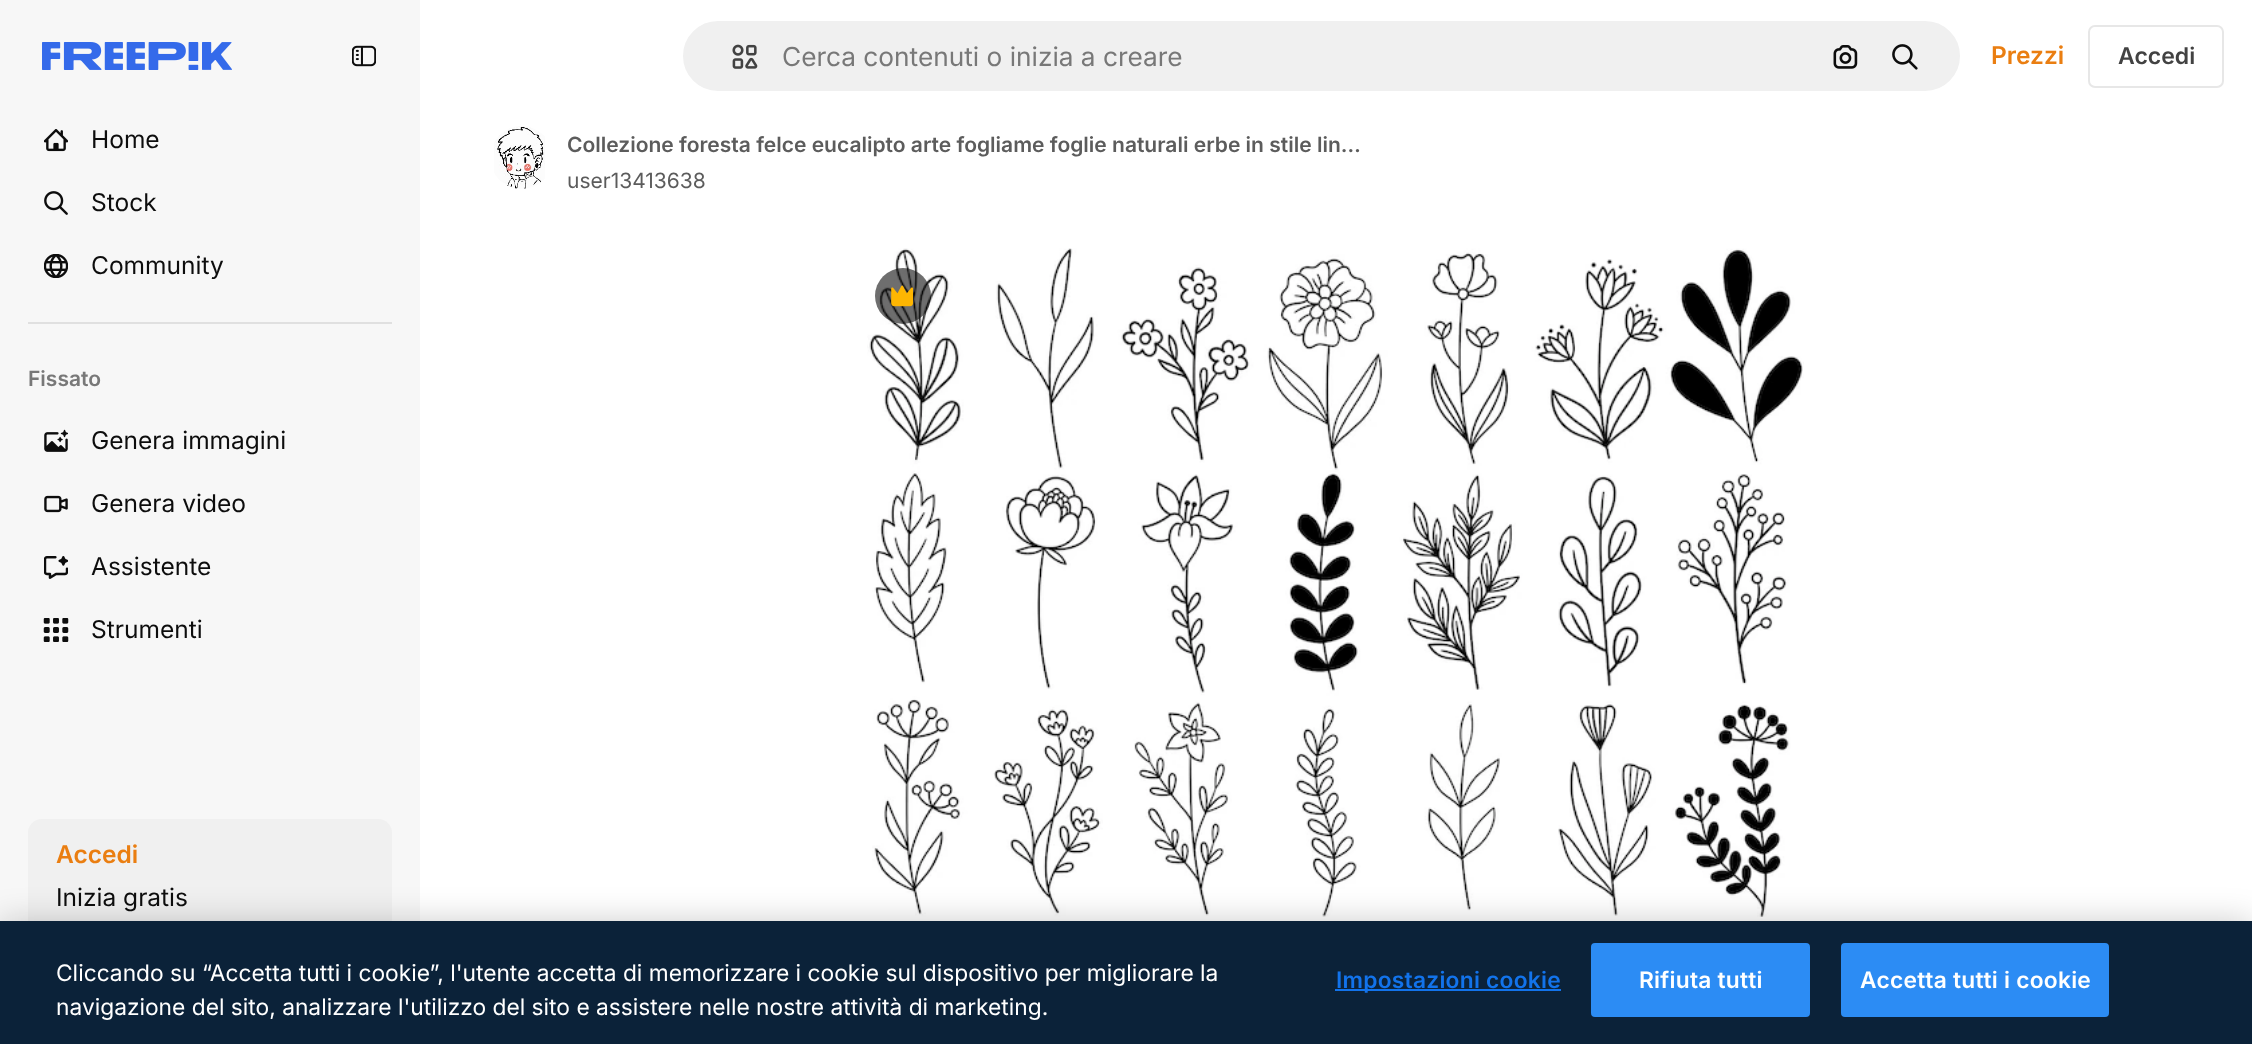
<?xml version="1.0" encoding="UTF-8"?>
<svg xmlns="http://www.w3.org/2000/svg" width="2252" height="1044">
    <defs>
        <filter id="blur1" x="-50%" y="-200%" width="200%" height="500%"><feGaussianBlur stdDeviation="16"/></filter>
    </defs>
    <rect width="100%" height="100%" fill="#FFFFFF"/>
    <rect x="0" y="0" width="420" height="921" fill="#F7F7F7"/>
    <image x="42" y="42" width="190" height="28" href="img_01.png"/>
    <image x="352" y="45" width="24" height="22" href="img_02.png"/>
    <image x="44" y="129" width="24" height="23" href="img_03.png"/>
    <text x="91" y="148" font-family="Inter" font-size="24.5" fill="#0D0D0D">Home</text>
    <image x="44" y="191" width="24" height="24" href="img_04.png"/>
    <text x="91" y="211" font-family="Inter" font-size="24.5" fill="#0D0D0D">Stock</text>
    <image x="44" y="254" width="24" height="24" href="img_05.png"/>
    <text x="91" y="274" font-family="Inter" font-size="24.5" fill="#0D0D0D">Community</text>
    <rect x="28" y="322" width="364" height="2" fill="#E0E0E0"/>
    <text x="28" y="386" font-family="Inter" font-size="21" font-weight="600" fill="#787878">Fissato</text>
    <image x="44" y="429" width="24" height="23" href="img_06.png"/>
    <text x="91" y="449" font-family="Inter" font-size="24.5" fill="#0D0D0D">Genera immagini</text>
    <image x="44" y="495" width="24" height="18" href="img_07.png"/>
    <text x="91" y="512" font-family="Inter" font-size="24.5" fill="#0D0D0D">Genera video</text>
    <image x="44" y="556" width="24" height="23" href="img_08.png"/>
    <text x="91" y="575" font-family="Inter" font-size="24.5" fill="#0D0D0D">Assistente</text>
    <image x="43" y="618" width="26" height="24" href="img_09.png"/>
    <text x="91" y="638" font-family="Inter" font-size="24.5" fill="#0D0D0D">Strumenti</text>
    <rect x="28" y="819" width="364" height="114" rx="14" fill="#F0F0F0"/>
    <text x="56" y="863" font-family="Inter" font-size="24.5" font-weight="600" fill="#EA7E11">Accedi</text>
    <text x="56" y="906" font-family="Inter" font-size="24.5" fill="#0D0D0D">Inizia gratis</text>
    <rect x="682" y="20" width="1279" height="72" rx="36" fill="#F0F0F0" stroke="#FFFFFF" stroke-width="2"/>
    <image x="732" y="44" width="26" height="25" href="img_10.png"/>
    <text x="782" y="66" font-family="Inter" font-size="26.25" fill="#787878">Cerca contenuti o inizia a creare</text>
    <image x="1833" y="45" width="25" height="24" href="img_11.png"/>
    <image x="1892" y="44" width="26" height="26" href="img_12.png"/>
    <text x="1991" y="64" font-family="Inter" font-size="24.5" font-weight="600" fill="#EA7E11">Prezzi</text>
    <rect x="2089" y="26" width="134" height="61" rx="6" fill="none" stroke="#E7E7E7" stroke-width="2"/>
    <text x="2118" y="64" font-family="Inter" font-size="23" font-weight="600" fill="#424242">Accedi</text>
    <image x="494" y="126" width="51" height="63" href="img_13.png"/>
    <text x="567" y="152" font-family="Inter" font-size="21" font-weight="600" fill="#5C5C5C">Collezione foresta felce eucalipto arte fogliame foglie naturali erbe in stile lin…</text>
    <text x="567" y="188" font-family="Inter" font-size="21" fill="#5C5C5C">user13413638</text>
    <image x="867" y="248" width="937" height="669" href="img_14.png"/>
    <circle cx="903" cy="296" r="28" fill="#0D0D0D" fill-opacity="0.6"/>
    <image x="891" y="285" width="23" height="22" href="img_15.png"/>
    <rect x="0" y="921" width="2252" height="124" fill="#000000" fill-opacity="0.2" filter="url(#blur1)"/>
    <rect x="0" y="921" width="2252" height="123" fill="#0B2239"/>
    <text font-family="Inter" font-size="22.75" fill="#FFFFFF">
        <tspan x="56" y="981">Cliccando su “Accetta tutti i cookie”, l'utente accetta di memorizzare i cookie sul dispositivo per migliorare la</tspan>
        <tspan x="56" y="1015">navigazione del sito, analizzare l'utilizzo del sito e assistere nelle nostre attività di marketing.</tspan>
    </text>
    <rect x="1335" y="989" width="226" height="2" fill="#1273EB"/>
    <text x="1336" y="988" font-family="Inter" font-size="22.75" font-weight="600" letter-spacing="0.25" fill="#1273EB">Impostazioni cookie</text>
    <rect x="1592" y="944" width="217" height="72" rx="3" fill="#2C8CF4" stroke="#2C8CF4" stroke-width="2"/>
    <text x="1639" y="988" font-family="Inter" font-size="22.75" font-weight="600" letter-spacing="0.25" fill="#FFFFFF">Rifiuta tutti</text>
    <rect x="1842" y="944" width="266" height="72" rx="3" fill="#2C8CF4" stroke="#2C8CF4" stroke-width="2"/>
    <text x="1860" y="988" font-family="Inter" font-size="22.75" font-weight="600" letter-spacing="0.25" fill="#FFFFFF">Accetta tutti i cookie</text>
</svg>
